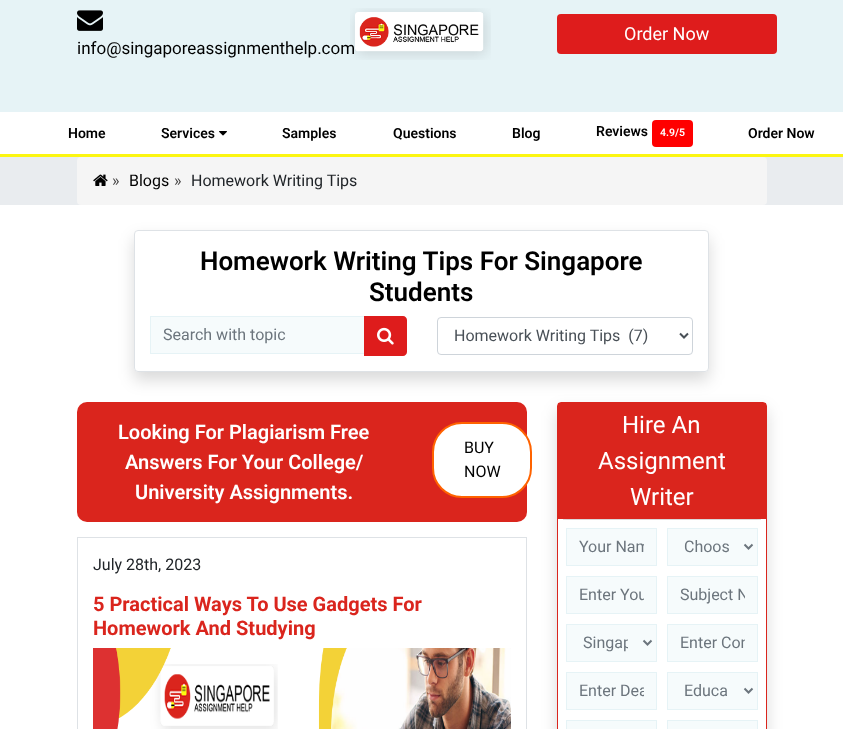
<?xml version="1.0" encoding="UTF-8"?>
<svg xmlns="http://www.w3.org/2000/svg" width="843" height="729">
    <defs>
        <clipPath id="clip1"><path d="M 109 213 H 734 V 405 H 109 Z M 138 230 H 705 C 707 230 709 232 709 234 V 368 C 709 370 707 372 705 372 H 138 C 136 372 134 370 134 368 V 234 C 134 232 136 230 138 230 Z" clip-rule="evenodd"/></clipPath>
        <filter id="blur1" x="-50%" y="-200%" width="200%" height="500%"><feGaussianBlur stdDeviation="8"/></filter>
        <clipPath id="clip2"><path d="M 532 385 H 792 V 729 H 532 Z M 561 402 H 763 C 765 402 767 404 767 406 V 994 C 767 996 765 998 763 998 H 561 C 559 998 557 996 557 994 V 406 C 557 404 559 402 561 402 Z" clip-rule="evenodd"/></clipPath>
        <clipPath id="clip3"><rect x="579" y="537" width="65" height="19"/></clipPath>
        <clipPath id="clip4"><rect x="579" y="585" width="65" height="19"/></clipPath>
        <clipPath id="clip5"><rect x="680" y="585" width="65" height="19"/></clipPath>
        <clipPath id="clip6"><rect x="583" y="632" width="45" height="21"/></clipPath>
        <clipPath id="clip7"><rect x="680" y="633" width="65" height="19"/></clipPath>
        <clipPath id="clip8"><rect x="579" y="681" width="65" height="19"/></clipPath>
    </defs>
    <rect width="100%" height="100%" fill="#FFFFFF"/>
    <rect x="0" y="0" width="843" height="112" fill="#E6F3F6"/>
    <text x="77" y="54" font-family="Roboto" font-size="17" fill="#000000">info@singaporeassignmenthelp.com</text>
    <image x="350" y="8" width="141" height="52" href="img_01.png"/>
    <rect x="557" y="14" width="220" height="40" rx="4" fill="#DE1C1C"/>
    <text x="624" y="40" font-family="Roboto" font-size="18" fill="#FFFFFF">Order Now</text>
    <image x="77" y="10" width="26" height="21" href="img_02.png"/>
    <rect x="0" y="154" width="843" height="3" fill="#FCF611"/>
    <text x="68" y="138" font-family="Roboto" font-size="14" font-weight="600" fill="#000000">Home</text>
    <text x="161" y="138" font-family="Roboto" font-size="14" font-weight="600" fill="#000000">Services</text>
    <image x="219" y="131" width="8" height="5" href="img_03.png"/>
    <text x="282" y="138" font-family="Roboto" font-size="14" font-weight="600" fill="#000000">Samples</text>
    <text x="393" y="138" font-family="Roboto" font-size="14" font-weight="600" fill="#000000">Questions</text>
    <text x="512" y="138" font-family="Roboto" font-size="14" font-weight="600" fill="#000000">Blog</text>
    <text x="596" y="136" font-family="Roboto" font-size="14" font-weight="600" fill="#000000">Reviews</text>
    <rect x="652" y="120" width="41" height="27" rx="4" fill="#FF0000"/>
    <text x="660" y="136" font-family="Roboto" font-size="10.5" font-weight="600" fill="#FFFFFF">4.9/5</text>
    <text x="748" y="138" font-family="Roboto" font-size="14" font-weight="600" fill="#000000">Order Now</text>
    <rect x="0" y="157" width="843" height="48" fill="#E9ECEF"/>
    <rect x="77" y="157" width="690" height="48" rx="4" fill="#F5F5F5"/>
    <image x="93" y="174" width="15" height="12" href="img_04.png"/>
    <text x="112" y="186" font-family="Roboto" font-size="16" fill="#403F3F">»</text>
    <text x="129" y="186" font-family="Roboto" font-size="16" fill="#000000">Blogs</text>
    <text x="174" y="186" font-family="Roboto" font-size="16" fill="#403F3F">»</text>
    <text x="191" y="186" font-family="Roboto" font-size="16" fill="#212529">Homework Writing Tips</text>
    <g clip-path="url(#clip1)">
        <rect x="134" y="238" width="575" height="142" rx="4" fill="#000000" fill-opacity="0.15" filter="url(#blur1)"/>
    </g>
    <rect x="134.5" y="230.5" width="574" height="141" rx="3.5" fill="none" stroke="#DEE2E6"/>
    <text x="200" y="270" font-family="Roboto" font-size="26" font-weight="600" fill="#000000">Homework Writing Tips For Singapore</text>
    <text x="369" y="301" font-family="Roboto" font-size="26" font-weight="600" fill="#000000">Students</text>
    <rect x="150.5" y="316.5" width="214" height="37" fill="#F6FBFC" stroke="#E6F3F6"/>
    <text x="163" y="340" font-family="Roboto" font-size="16" fill="#6C757D">Search with topic</text>
    <path d="M 364 316 H 403 C 405 316 407 318 407 320 V 352 C 407 354 405 356 403 356 H 364 Z" fill="#DE1C1C"/>
    <image x="377" y="327" width="17" height="18" href="img_05.png"/>
    <rect x="437.5" y="317.5" width="255" height="37" rx="3.5" fill="none" stroke="#CED4DA"/>
    <path d="M 680 333.5 L 684 337.5 L 688 333.5" fill="none" stroke="#495057" stroke-width="2"/>
    <text x="454" y="341" font-family="Roboto" font-size="16" fill="#495057" xml:space="preserve">Homework Writing Tips  (7)</text>
    <rect x="77" y="402" width="450" height="120" rx="10" fill="#DA251D"/>
    <text x="118" y="439" font-family="Roboto" font-size="20" font-weight="600" fill="#FFFFFF">Looking For Plagiarism Free</text>
    <text x="125" y="469" font-family="Roboto" font-size="20" font-weight="600" fill="#FFFFFF">Answers For Your College/</text>
    <text x="135" y="499" font-family="Roboto" font-size="20" font-weight="600" fill="#FFFFFF">University Assignments.</text>
    <rect x="433" y="423" width="98" height="74" rx="29" fill="#FFFFFF" stroke="#FF6300" stroke-width="2"/>
    <text font-family="Roboto" font-size="16" fill="#000000">
        <tspan x="464" y="453">BUY</tspan>
        <tspan x="464" y="477">NOW</tspan>
    </text>
    <rect x="77.5" y="537.5" width="449" height="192" fill="none" stroke="#DEE2E6"/>
    <text x="93" y="570" font-family="Roboto" font-size="16" fill="#212529">July 28th, 2023</text>
    <text font-family="Roboto" font-size="20" font-weight="700" fill="#DA251D">
        <tspan x="93" y="611">5 Practical Ways To Use Gadgets For</tspan>
        <tspan x="93" y="635">Homework And Studying</tspan>
    </text>
    <image x="93" y="648" width="418" height="81" href="img_06.png"/>
    <g clip-path="url(#clip2)">
        <rect x="557" y="410" width="210" height="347" rx="4" fill="#000000" fill-opacity="0.15" filter="url(#blur1)"/>
    </g>
    <rect x="557.5" y="402.5" width="209" height="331" rx="3.5" fill="none" stroke="#DA251D"/>
    <rect x="558" y="403" width="208" height="117" rx="10" fill="#F7F7F7"/>
    <rect x="563" y="519" width="198" height="1" fill="#000000" fill-opacity="0.12"/>
    <rect x="558" y="403" width="208" height="116" fill="#DA251D"/>
    <text x="622" y="433" font-family="Roboto" font-size="24" fill="#FFFFFF">Hire An</text>
    <text x="598" y="469" font-family="Roboto" font-size="24" fill="#FFFFFF">Assignment</text>
    <text x="630" y="505" font-family="Roboto" font-size="24" fill="#FFFFFF">Writer</text>
    <rect x="566.5" y="528.5" width="90" height="37" fill="#F6FBFC" stroke="#E6F3F6"/>
    <g clip-path="url(#clip3)">
        <text x="579" y="552" font-family="Roboto" font-size="16" fill="#6C757D">Your Nam</text>
    </g>
    <rect x="667.5" y="528.5" width="90" height="37" fill="#F6FBFC" stroke="#E6F3F6"/>
    <path d="M 744.5 544.5 L 748.5 548.5 L 752.5 544.5" fill="none" stroke="#6C757D" stroke-width="2"/>
    <text x="684" y="552" font-family="Roboto" font-size="16" fill="#6C757D">Choos</text>
    <rect x="566.5" y="576.5" width="90" height="37" fill="#F6FBFC" stroke="#E6F3F6"/>
    <g clip-path="url(#clip4)">
        <text x="579" y="600" font-family="Roboto" font-size="16" fill="#6C757D">Enter You</text>
    </g>
    <rect x="667.5" y="576.5" width="90" height="37" fill="#F6FBFC" stroke="#E6F3F6"/>
    <g clip-path="url(#clip5)">
        <text x="680" y="600" font-family="Roboto" font-size="16" fill="#6C757D">Subject N</text>
    </g>
    <rect x="566.5" y="624.5" width="90" height="37" fill="#F6FBFC" stroke="#E6F3F6"/>
    <path d="M 643.5 640.5 L 647.5 644.5 L 651.5 640.5" fill="none" stroke="#6C757D" stroke-width="2"/>
    <g clip-path="url(#clip6)">
        <text x="583" y="648" font-family="Roboto" font-size="16" fill="#6C757D">Singap</text>
    </g>
    <rect x="667.5" y="624.5" width="90" height="37" fill="#F6FBFC" stroke="#E6F3F6"/>
    <g clip-path="url(#clip7)">
        <text x="680" y="648" font-family="Roboto" font-size="16" fill="#6C757D">Enter Con</text>
    </g>
    <rect x="566.5" y="672.5" width="90" height="37" fill="#F6FBFC" stroke="#E6F3F6"/>
    <g clip-path="url(#clip8)">
        <text x="579" y="696" font-family="Roboto" font-size="16" fill="#6C757D">Enter Dea</text>
    </g>
    <rect x="667.5" y="672.5" width="90" height="37" fill="#F6FBFC" stroke="#E6F3F6"/>
    <path d="M 744.5 688.5 L 748.5 692.5 L 752.5 688.5" fill="none" stroke="#6C757D" stroke-width="2"/>
    <text x="684" y="696" font-family="Roboto" font-size="16" fill="#6C757D">Educa</text>
    <rect x="566.5" y="720.5" width="90" height="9" fill="#F6FBFC" stroke="#E6F3F6"/>
    <rect x="667.5" y="720.5" width="90" height="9" fill="#F6FBFC" stroke="#E6F3F6"/>
</svg>
